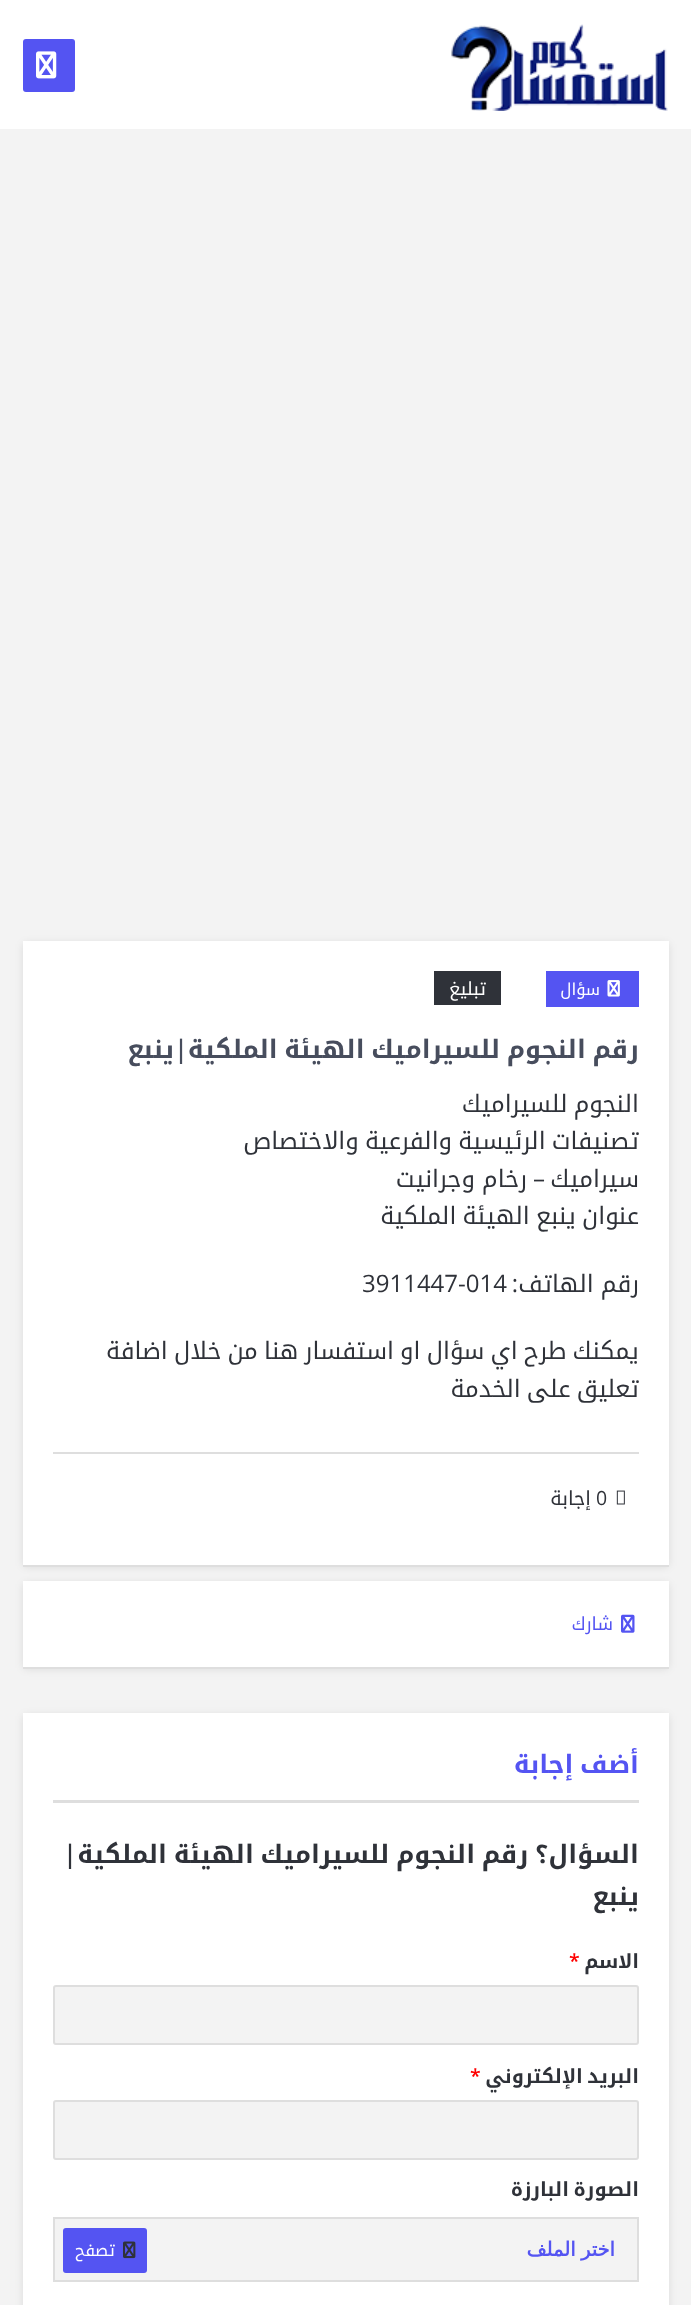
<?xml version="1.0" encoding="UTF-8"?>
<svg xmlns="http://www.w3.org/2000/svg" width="691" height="2305">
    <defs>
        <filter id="blur1" x="-50%" y="-200%" width="200%" height="500%"><feGaussianBlur stdDeviation="4"/></filter>
        <clipPath id="clip1"><rect x="53" y="1028" width="586" height="42"/></clipPath>
    </defs>
    <rect width="100%" height="100%" fill="#F3F3F3"/>
    <rect x="0" y="0" width="691" height="129" fill="#FFFFFF"/>
    <image x="451" y="24" width="217" height="87" href="img_01.png"/>
    <rect x="23" y="39" width="52" height="53" rx="3" fill="#5454F2"/>
    <image x="36" y="51" width="21" height="28" href="img_02.png"/>
    <rect x="24" y="944" width="644" height="622" fill="#000000" fill-opacity="0.13" filter="url(#blur1)"/>
    <rect x="23" y="941" width="646" height="624" fill="#FFFFFF"/>
    <rect x="23" y="1565" width="646" height="2" fill="#DEDEDE"/>
    <rect x="546" y="971" width="93" height="36" fill="#5454F2"/>
    <image x="607" y="980" width="13" height="17" href="img_03.png"/>
    <text x="600" y="995" font-family="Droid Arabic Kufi" font-size="16.5" direction="rtl" fill="#FFFFFF">سؤال</text>
    <rect x="434" y="971" width="67" height="34" fill="#2F3239"/>
    <text x="486" y="995" font-family="Droid Arabic Kufi" font-size="18" direction="rtl" fill="#FFFFFF">تبليغ</text>
    <g clip-path="url(#clip1)">
        <text x="639" y="1058" word-spacing="-2" font-family="Droid Arabic Kufi" font-size="25.5" font-weight="700" direction="rtl" fill="#474D5D">رقم النجوم للسيراميك الهيئة الملكية</text>
    </g>
    <text x="188" y="1058" font-family="Open Sans" font-size="25.5" font-weight="600" direction="rtl" fill="#474D5D">|</text>
    <text x="174" y="1058" font-family="Droid Arabic Kufi" font-size="25.5" font-weight="700" direction="rtl" fill="#474D5D">ينبع</text>
    <rect x="53" y="1452" width="586" height="2" fill="#DEDEDE"/>
    <text font-family="Droid Arabic Kufi" font-size="24" direction="rtl" fill="#2F3239">
        <tspan x="639" y="1112" word-spacing="-2">النجوم للسيراميك</tspan>
        <tspan x="639" y="1149" word-spacing="-2">تصنيفات الرئيسية والفرعية والاختصاص</tspan>
        <tspan x="639" y="1187">سيراميك</tspan>
    </text>
    <text x="545" y="1187" font-family="Open Sans" font-size="24" direction="rtl" fill="#2F3239">–</text>
    <text x="527" y="1187" word-spacing="-1" font-family="Droid Arabic Kufi" font-size="24" direction="rtl" fill="#2F3239">رخام وجرانيت</text>
    <text x="639" y="1224" word-spacing="-2" font-family="Droid Arabic Kufi" font-size="24" direction="rtl" fill="#2F3239">عنوان ينبع الهيئة الملكية</text>
    <text x="639" y="1292" word-spacing="-1" font-family="Droid Arabic Kufi" font-size="24" direction="rtl" fill="#2F3239">رقم الهاتف</text>
    <text x="518" y="1292" font-family="Open Sans" font-size="24" direction="rtl" fill="#2F3239">:</text>
    <text x="362" y="1292" font-family="Open Sans" font-size="24" fill="#2F3239">3911447-014</text>
    <text font-family="Droid Arabic Kufi" font-size="24" direction="rtl" fill="#2F3239">
        <tspan x="639" y="1359" word-spacing="-2">يمكنك طرح اي سؤال او استفسار هنا من خلال اضافة</tspan>
        <tspan x="639" y="1397" word-spacing="-2">تعليق على الخدمة</tspan>
    </text>
    <image x="616" y="1490" width="9" height="15" href="img_04.png"/>
    <text x="596" y="1505" font-family="Open Sans" font-size="19.5" fill="#2F3239">0</text>
    <text x="591" y="1505" font-family="Droid Arabic Kufi" font-size="19.5" direction="rtl" fill="#2F3239">إجابة</text>
    <rect x="24" y="1584" width="644" height="84" fill="#000000" fill-opacity="0.13" filter="url(#blur1)"/>
    <rect x="23" y="1581" width="646" height="86" fill="#FFFFFF"/>
    <rect x="23" y="1667" width="646" height="2" fill="#DEDEDE"/>
    <image x="621" y="1614" width="14" height="19" href="img_05.png"/>
    <text x="613" y="1630" font-family="Droid Arabic Kufi" font-size="18" direction="rtl" fill="#5454F2">شارك</text>
    <rect x="24" y="1716" width="644" height="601" fill="#000000" fill-opacity="0.13" filter="url(#blur1)"/>
    <rect x="23" y="1713" width="646" height="592" fill="#FFFFFF"/>
    <rect x="53" y="1800" width="586" height="3" fill="#DEDEDE"/>
    <text x="639" y="1773" word-spacing="-2" font-family="Droid Arabic Kufi" font-size="25.5" font-weight="700" direction="rtl" fill="#5454F2">أضف إجابة</text>
    <text x="639" y="1863" word-spacing="-2" font-family="Droid Arabic Kufi" font-size="25.5" font-weight="700" direction="rtl" fill="#2F3239">السؤال؟ رقم النجوم للسيراميك الهيئة الملكية</text>
    <text x="77" y="1863" font-family="Open Sans" font-size="25.5" font-weight="600" direction="rtl" fill="#2F3239">|</text>
    <text x="639" y="1905" font-family="Droid Arabic Kufi" font-size="25.5" font-weight="700" direction="rtl" fill="#2F3239">ينبع</text>
    <text x="639" y="1968" font-family="Droid Arabic Kufi" font-size="19.5" font-weight="700" direction="rtl" fill="#2F3239">الاسم</text>
    <text x="569" y="1968" font-family="Open Sans" font-size="19.5" font-weight="600" fill="#FF0000">*</text>
    <rect x="54" y="1986" width="584" height="58" rx="2" fill="#F3F3F3" stroke="#DEDEDE" stroke-width="2"/>
    <text x="639" y="2083" word-spacing="-2" font-family="Droid Arabic Kufi" font-size="19.5" font-weight="700" direction="rtl" fill="#2F3239">البريد الإلكتروني</text>
    <text x="470" y="2083" font-family="Open Sans" font-size="19.5" font-weight="600" fill="#FF0000">*</text>
    <rect x="54" y="2101" width="584" height="58" rx="2" fill="#F3F3F3" stroke="#DEDEDE" stroke-width="2"/>
    <text x="639" y="2196" word-spacing="-2" font-family="Droid Arabic Kufi" font-size="19.5" font-weight="700" direction="rtl" fill="#2F3239">الصورة البارزة</text>
    <rect x="54" y="2218" width="584" height="63" fill="#F3F3F3" stroke="#DEDEDE" stroke-width="2"/>
    <text x="615" y="2256" word-spacing="-1" font-family="DejaVu Sans" font-size="19.5" font-weight="700" direction="rtl" fill="#5454F2">اختر الملف</text>
    <rect x="63" y="2228" width="84" height="45" rx="3" fill="#5454F2"/>
    <image x="123" y="2241" width="13" height="18" href="img_06.png"/>
    <text x="115" y="2256" font-family="Droid Arabic Kufi" font-size="16.5" direction="rtl" fill="#FFFFFF">تصفح</text>
</svg>
